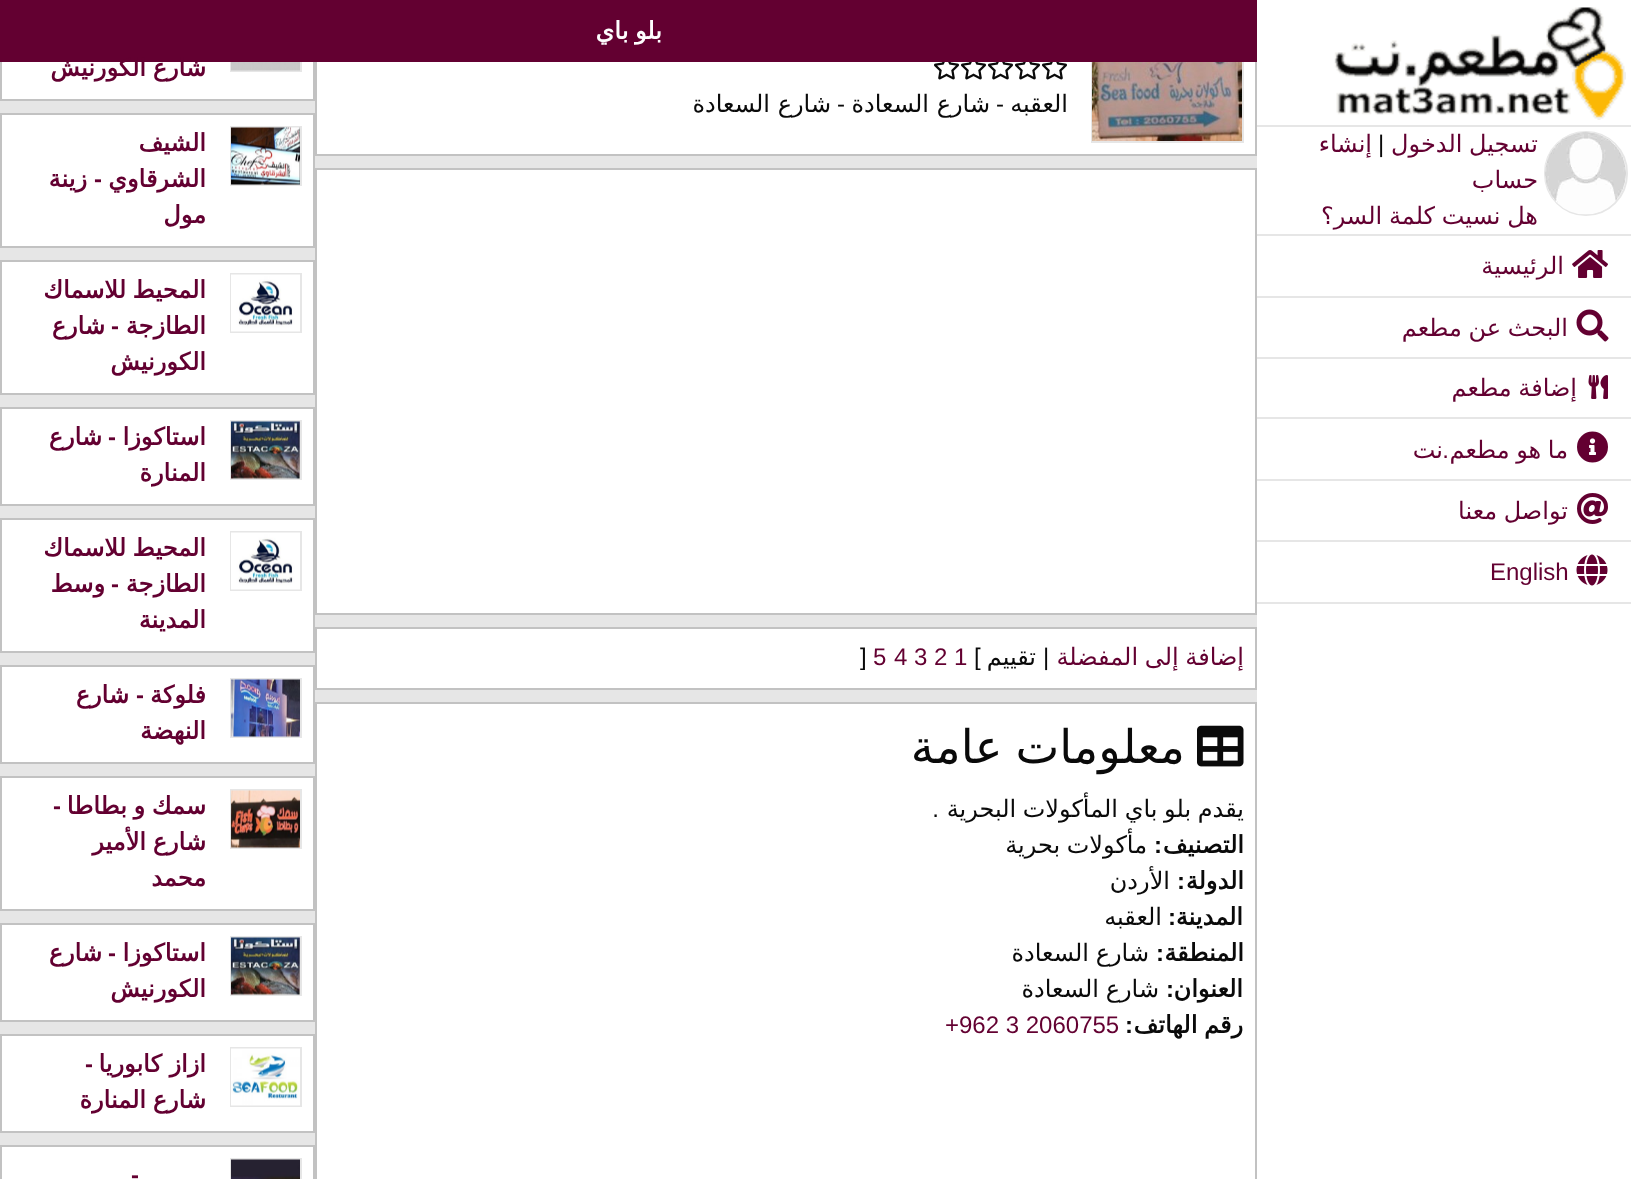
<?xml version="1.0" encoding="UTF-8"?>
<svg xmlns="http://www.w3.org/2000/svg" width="1631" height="1179">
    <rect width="100%" height="100%" fill="#E6E6E6"/>
    <rect x="1257" y="0" width="374" height="1179" fill="#FFFFFF"/>
    <rect x="1257" y="125" width="374" height="2" fill="#E6E6E6"/>
    <image x="1334" y="7" width="292" height="113" href="img_01.png"/>
    <rect x="1257" y="234" width="374" height="2" fill="#E6E6E6"/>
    <rect x="1545" y="132" width="82" height="83" rx="41" fill="none" stroke="#E6E6E6" stroke-width="2"/>
    <image x="1545" y="132" width="81" height="83" href="img_02.png"/>
    <text x="1538" y="152" word-spacing="-1" font-family="DejaVu Sans" font-size="24" direction="rtl" fill="#630031">تسجيل الدخول</text>
    <text x="1378" y="152" font-family="Liberation Sans" font-size="24" fill="#0A0A0A">|</text>
    <text x="1372" y="152" font-family="DejaVu Sans" font-size="24" direction="rtl" fill="#630031">إنشاء</text>
    <text font-family="DejaVu Sans" font-size="24" direction="rtl" fill="#630031">
        <tspan x="1538" y="188">حساب</tspan>
        <tspan x="1538" y="224" word-spacing="-1">هل نسيت كلمة السر؟</tspan>
    </text>
    <rect x="1257" y="296" width="374" height="2" fill="#E6E6E6"/>
    <image x="1572" y="250" width="36" height="28" href="img_03.png"/>
    <text x="1564" y="274" font-family="DejaVu Sans" font-size="24" direction="rtl" fill="#630031">الرئيسية</text>
    <rect x="1257" y="357" width="374" height="2" fill="#E6E6E6"/>
    <image x="1576" y="309" width="33" height="33" href="img_04.png"/>
    <text x="1568" y="336" word-spacing="-1" font-family="DejaVu Sans" font-size="24" direction="rtl" fill="#630031">البحث عن مطعم</text>
    <rect x="1257" y="417" width="374" height="2" fill="#E6E6E6"/>
    <image x="1588" y="375" width="20" height="24" href="img_05.png"/>
    <text x="1577" y="396" word-spacing="-1" font-family="DejaVu Sans" font-size="24" direction="rtl" fill="#630031">إضافة مطعم</text>
    <rect x="1257" y="479" width="374" height="2" fill="#E6E6E6"/>
    <image x="1577" y="431" width="31" height="32" href="img_06.png"/>
    <text x="1568" y="458" word-spacing="-1" font-family="DejaVu Sans" font-size="24" direction="rtl" fill="#630031">ما هو مطعم</text>
    <text x="1449" y="458" font-family="Liberation Sans" font-size="24" direction="rtl" fill="#630031">.</text>
    <text x="1443" y="458" font-family="DejaVu Sans" font-size="24" direction="rtl" fill="#630031">نت</text>
    <rect x="1257" y="540" width="374" height="2" fill="#E6E6E6"/>
    <image x="1577" y="493" width="31" height="31" href="img_07.png"/>
    <text x="1568" y="519" word-spacing="-1" font-family="DejaVu Sans" font-size="24" direction="rtl" fill="#630031">تواصل معنا</text>
    <rect x="1257" y="602" width="374" height="2" fill="#E6E6E6"/>
    <image x="1576" y="554" width="32" height="32" href="img_08.png"/>
    <text x="1490" y="580" font-family="Liberation Sans" font-size="24" fill="#630031">English</text>
    <rect x="317" y="62" width="938" height="92" fill="#FFFFFF"/>
    <rect x="316" y="3" width="940" height="152" fill="none" stroke="#C2C2C2" stroke-width="2"/>
    <rect x="1092" y="16" width="151" height="126" fill="none" stroke="#E6E6E6" stroke-width="2"/>
    <rect x="2" y="62" width="311" height="37" fill="#FFFFFF"/>
    <rect x="1" y="3" width="313" height="97" fill="none" stroke="#C2C2C2" stroke-width="2"/>
    <rect x="231" y="16" width="70" height="55" fill="none" stroke="#E6E6E6" stroke-width="2"/>
    <rect x="0" y="0" width="1257" height="62" fill="#630031"/>
    <text x="662" y="39" word-spacing="-1" font-family="DejaVu Sans" font-size="24" font-weight="700" direction="rtl" fill="#FEFEFE">بلو باي</text>
    <image x="1092" y="62" width="150" height="79" href="img_09.png"/>
    <image x="1042" y="62" width="25" height="18" href="img_10.png"/>
    <image x="1015" y="62" width="25" height="18" href="img_10.png"/>
    <image x="988" y="62" width="25" height="18" href="img_10.png"/>
    <image x="961" y="62" width="25" height="18" href="img_10.png"/>
    <image x="934" y="62" width="25" height="18" href="img_10.png"/>
    <text x="1068" y="112" font-family="DejaVu Sans" font-size="24" direction="rtl" fill="#0A0A0A">العقبه</text>
    <text x="1004" y="112" font-family="Liberation Sans" font-size="24" direction="rtl" fill="#0A0A0A">-</text>
    <text x="990" y="112" font-family="DejaVu Sans" font-size="24" direction="rtl" fill="#0A0A0A">شارع السعادة</text>
    <text x="845" y="112" font-family="Liberation Sans" font-size="24" direction="rtl" fill="#0A0A0A">-</text>
    <text x="831" y="112" font-family="DejaVu Sans" font-size="24" direction="rtl" fill="#0A0A0A">شارع السعادة</text>
    <rect x="316" y="169" width="940" height="445" fill="#FFFFFF" stroke="#C2C2C2" stroke-width="2"/>
    <rect x="316" y="628" width="940" height="61" fill="#FFFFFF" stroke="#C2C2C2" stroke-width="2"/>
    <text x="1244" y="665" word-spacing="-1" font-family="DejaVu Sans" font-size="24" direction="rtl" fill="#630031">إضافة إلى المفضلة</text>
    <text x="1043" y="665" font-family="Liberation Sans" font-size="24" fill="#0A0A0A">|</text>
    <text x="1036" y="665" font-family="DejaVu Sans" font-size="24" direction="rtl" fill="#0A0A0A">تقييم</text>
    <text x="974" y="665" font-family="Liberation Sans" font-size="24" fill="#0A0A0A">[</text>
    <text x="954" y="665" font-family="Liberation Sans" font-size="24" fill="#630031">1</text>
    <text x="934" y="665" font-family="Liberation Sans" font-size="24" fill="#630031">2</text>
    <text x="914" y="665" font-family="Liberation Sans" font-size="24" fill="#630031">3</text>
    <text x="894" y="665" font-family="Liberation Sans" font-size="24" fill="#630031">4</text>
    <text x="873" y="665" font-family="Liberation Sans" font-size="24" fill="#630031">5</text>
    <text x="860" y="665" font-family="Liberation Sans" font-size="24" fill="#0A0A0A">]</text>
    <rect x="316" y="703" width="940" height="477" fill="#FFFFFF" stroke="#C2C2C2" stroke-width="2"/>
    <image x="1197" y="725" width="47" height="42" href="img_11.png"/>
    <text x="1185" y="763" word-spacing="-2" font-family="DejaVu Sans" font-size="46.5" direction="rtl" fill="#0A0A0A">معلومات عامة</text>
    <text x="1244" y="817" word-spacing="-1" font-family="DejaVu Sans" font-size="24" direction="rtl" fill="#0A0A0A">يقدم بلو باي المأكولات البحرية</text>
    <text x="939" y="817" font-family="Liberation Sans" font-size="24" direction="rtl" fill="#0A0A0A">.</text>
    <text x="1244" y="853" font-family="DejaVu Sans" font-size="24" font-weight="700" direction="rtl" fill="#0A0A0A">التصنيف</text>
    <text x="1162" y="853" font-family="Liberation Sans" font-size="24" font-weight="700" direction="rtl" fill="#0A0A0A">:</text>
    <text x="1147" y="853" word-spacing="-1" font-family="DejaVu Sans" font-size="24" direction="rtl" fill="#0A0A0A">مأكولات بحرية</text>
    <text x="1244" y="889" font-family="DejaVu Sans" font-size="24" font-weight="700" direction="rtl" fill="#0A0A0A">الدولة</text>
    <text x="1185" y="889" font-family="Liberation Sans" font-size="24" font-weight="700" direction="rtl" fill="#0A0A0A">:</text>
    <text x="1170" y="889" font-family="DejaVu Sans" font-size="24" direction="rtl" fill="#0A0A0A">الأردن</text>
    <text x="1243" y="925" font-family="DejaVu Sans" font-size="24" font-weight="700" direction="rtl" fill="#0A0A0A">المدينة</text>
    <text x="1176" y="925" font-family="Liberation Sans" font-size="24" font-weight="700" direction="rtl" fill="#0A0A0A">:</text>
    <text x="1162" y="925" font-family="DejaVu Sans" font-size="24" direction="rtl" fill="#0A0A0A">العقبه</text>
    <text x="1244" y="961" font-family="DejaVu Sans" font-size="24" font-weight="700" direction="rtl" fill="#0A0A0A">المنطقة</text>
    <text x="1164" y="961" font-family="Liberation Sans" font-size="24" font-weight="700" direction="rtl" fill="#0A0A0A">:</text>
    <text x="1149" y="961" word-spacing="-1" font-family="DejaVu Sans" font-size="24" direction="rtl" fill="#0A0A0A">شارع السعادة</text>
    <text x="1243" y="997" font-family="DejaVu Sans" font-size="24" font-weight="700" direction="rtl" fill="#0A0A0A">العنوان</text>
    <text x="1174" y="997" font-family="Liberation Sans" font-size="24" font-weight="700" direction="rtl" fill="#0A0A0A">:</text>
    <text x="1159" y="997" word-spacing="-1" font-family="DejaVu Sans" font-size="24" direction="rtl" fill="#0A0A0A">شارع السعادة</text>
    <text x="1243" y="1033" word-spacing="-1" font-family="DejaVu Sans" font-size="24" font-weight="700" direction="rtl" fill="#0A0A0A">رقم الهاتف</text>
    <text x="1133" y="1033" font-family="Liberation Sans" font-size="24" font-weight="700" direction="rtl" fill="#0A0A0A">:</text>
    <text x="945" y="1033" font-family="Liberation Sans" font-size="24" fill="#630031">+962 3 2060755</text>
    <image x="231" y="62" width="69" height="9" href="img_12.png"/>
    <text x="206" y="76" word-spacing="-1" font-family="DejaVu Sans" font-size="24" font-weight="700" direction="rtl" fill="#630031">شارع الكورنيش</text>
    <rect x="1" y="114" width="313" height="133" fill="#FFFFFF" stroke="#C2C2C2" stroke-width="2"/>
    <rect x="231" y="127" width="70" height="58" fill="none" stroke="#E6E6E6" stroke-width="2"/>
    <image x="231" y="127" width="69" height="58" href="img_13.png"/>
    <text font-family="DejaVu Sans" font-size="24" font-weight="700" direction="rtl" fill="#630031">
        <tspan x="206" y="151">الشيف</tspan>
        <tspan x="206" y="187">الشرقاوي</tspan>
    </text>
    <text x="102" y="187" font-family="Liberation Sans" font-size="24" font-weight="700" direction="rtl" fill="#630031">-</text>
    <text x="87" y="187" font-family="DejaVu Sans" font-size="24" font-weight="700" direction="rtl" fill="#630031">زينة</text>
    <text x="206" y="223" font-family="DejaVu Sans" font-size="24" font-weight="700" direction="rtl" fill="#630031">مول</text>
    <rect x="1" y="261" width="313" height="133" fill="#FFFFFF" stroke="#C2C2C2" stroke-width="2"/>
    <rect x="231" y="274" width="70" height="58" fill="none" stroke="#E6E6E6" stroke-width="2"/>
    <image x="231" y="274" width="69" height="58" href="img_14.png"/>
    <text font-family="DejaVu Sans" font-size="24" font-weight="700" direction="rtl" fill="#630031">
        <tspan x="206" y="298" word-spacing="-1">المحيط للاسماك</tspan>
        <tspan x="206" y="334">الطازجة</tspan>
    </text>
    <text x="119" y="334" font-family="Liberation Sans" font-size="24" font-weight="700" direction="rtl" fill="#630031">-</text>
    <text x="105" y="334" font-family="DejaVu Sans" font-size="24" font-weight="700" direction="rtl" fill="#630031">شارع</text>
    <text x="206" y="370" font-family="DejaVu Sans" font-size="24" font-weight="700" direction="rtl" fill="#630031">الكورنيش</text>
    <rect x="1" y="408" width="313" height="97" fill="#FFFFFF" stroke="#C2C2C2" stroke-width="2"/>
    <rect x="231" y="421" width="70" height="58" fill="none" stroke="#E6E6E6" stroke-width="2"/>
    <image x="231" y="421" width="69" height="58" href="img_15.png"/>
    <text x="206" y="445" font-family="DejaVu Sans" font-size="24" font-weight="700" direction="rtl" fill="#630031">استاكوزا</text>
    <text x="116" y="445" font-family="Liberation Sans" font-size="24" font-weight="700" direction="rtl" fill="#630031">-</text>
    <text x="102" y="445" font-family="DejaVu Sans" font-size="24" font-weight="700" direction="rtl" fill="#630031">شارع</text>
    <text x="206" y="481" font-family="DejaVu Sans" font-size="24" font-weight="700" direction="rtl" fill="#630031">المنارة</text>
    <rect x="1" y="519" width="313" height="133" fill="#FFFFFF" stroke="#C2C2C2" stroke-width="2"/>
    <rect x="231" y="532" width="70" height="58" fill="none" stroke="#E6E6E6" stroke-width="2"/>
    <image x="231" y="532" width="69" height="58" href="img_14.png"/>
    <text font-family="DejaVu Sans" font-size="24" font-weight="700" direction="rtl" fill="#630031">
        <tspan x="206" y="556" word-spacing="-1">المحيط للاسماك</tspan>
        <tspan x="206" y="592">الطازجة</tspan>
    </text>
    <text x="119" y="592" font-family="Liberation Sans" font-size="24" font-weight="700" direction="rtl" fill="#630031">-</text>
    <text x="105" y="592" font-family="DejaVu Sans" font-size="24" font-weight="700" direction="rtl" fill="#630031">وسط</text>
    <text x="206" y="628" font-family="DejaVu Sans" font-size="24" font-weight="700" direction="rtl" fill="#630031">المدينة</text>
    <rect x="1" y="666" width="313" height="97" fill="#FFFFFF" stroke="#C2C2C2" stroke-width="2"/>
    <rect x="231" y="679" width="70" height="58" fill="none" stroke="#E6E6E6" stroke-width="2"/>
    <image x="231" y="679" width="69" height="58" href="img_16.png"/>
    <text x="206" y="703" font-family="DejaVu Sans" font-size="24" font-weight="700" direction="rtl" fill="#630031">فلوكة</text>
    <text x="144" y="703" font-family="Liberation Sans" font-size="24" font-weight="700" direction="rtl" fill="#630031">-</text>
    <text x="129" y="703" font-family="DejaVu Sans" font-size="24" font-weight="700" direction="rtl" fill="#630031">شارع</text>
    <text x="206" y="739" font-family="DejaVu Sans" font-size="24" font-weight="700" direction="rtl" fill="#630031">النهضة</text>
    <rect x="1" y="777" width="313" height="133" fill="#FFFFFF" stroke="#C2C2C2" stroke-width="2"/>
    <rect x="231" y="790" width="70" height="58" fill="none" stroke="#E6E6E6" stroke-width="2"/>
    <image x="231" y="790" width="69" height="58" href="img_17.png"/>
    <text x="206" y="814" word-spacing="-1" font-family="DejaVu Sans" font-size="24" font-weight="700" direction="rtl" fill="#630031">سمك و بطاطا</text>
    <text x="61" y="814" font-family="Liberation Sans" font-size="24" font-weight="700" direction="rtl" fill="#630031">-</text>
    <text font-family="DejaVu Sans" font-size="24" font-weight="700" direction="rtl" fill="#630031">
        <tspan x="206" y="850" word-spacing="-1">شارع الأمير</tspan>
        <tspan x="206" y="886">محمد</tspan>
    </text>
    <rect x="1" y="924" width="313" height="97" fill="#FFFFFF" stroke="#C2C2C2" stroke-width="2"/>
    <rect x="231" y="937" width="70" height="58" fill="none" stroke="#E6E6E6" stroke-width="2"/>
    <image x="231" y="937" width="69" height="58" href="img_15.png"/>
    <text x="206" y="961" font-family="DejaVu Sans" font-size="24" font-weight="700" direction="rtl" fill="#630031">استاكوزا</text>
    <text x="116" y="961" font-family="Liberation Sans" font-size="24" font-weight="700" direction="rtl" fill="#630031">-</text>
    <text x="102" y="961" font-family="DejaVu Sans" font-size="24" font-weight="700" direction="rtl" fill="#630031">شارع</text>
    <text x="206" y="997" font-family="DejaVu Sans" font-size="24" font-weight="700" direction="rtl" fill="#630031">الكورنيش</text>
    <rect x="1" y="1035" width="313" height="97" fill="#FFFFFF" stroke="#C2C2C2" stroke-width="2"/>
    <rect x="231" y="1048" width="70" height="58" fill="none" stroke="#E6E6E6" stroke-width="2"/>
    <image x="231" y="1048" width="69" height="58" href="img_18.png"/>
    <text x="206" y="1072" font-family="DejaVu Sans" font-size="24" font-weight="700" direction="rtl" fill="#630031">ازاز كابوريا</text>
    <text x="93" y="1072" font-family="Liberation Sans" font-size="24" font-weight="700" direction="rtl" fill="#630031">-</text>
    <text x="206" y="1108" word-spacing="-1" font-family="DejaVu Sans" font-size="24" font-weight="700" direction="rtl" fill="#630031">شارع المنارة</text>
    <rect x="1" y="1146" width="313" height="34" fill="#FFFFFF" stroke="#C2C2C2" stroke-width="2"/>
    <rect x="231" y="1159" width="70" height="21" fill="none" stroke="#E6E6E6" stroke-width="2"/>
    <image x="231" y="1159" width="69" height="20" href="img_19.png"/>
    <text x="139" y="1183" font-family="Liberation Sans" font-size="24" font-weight="700" direction="rtl" fill="#630031">-</text>
</svg>
